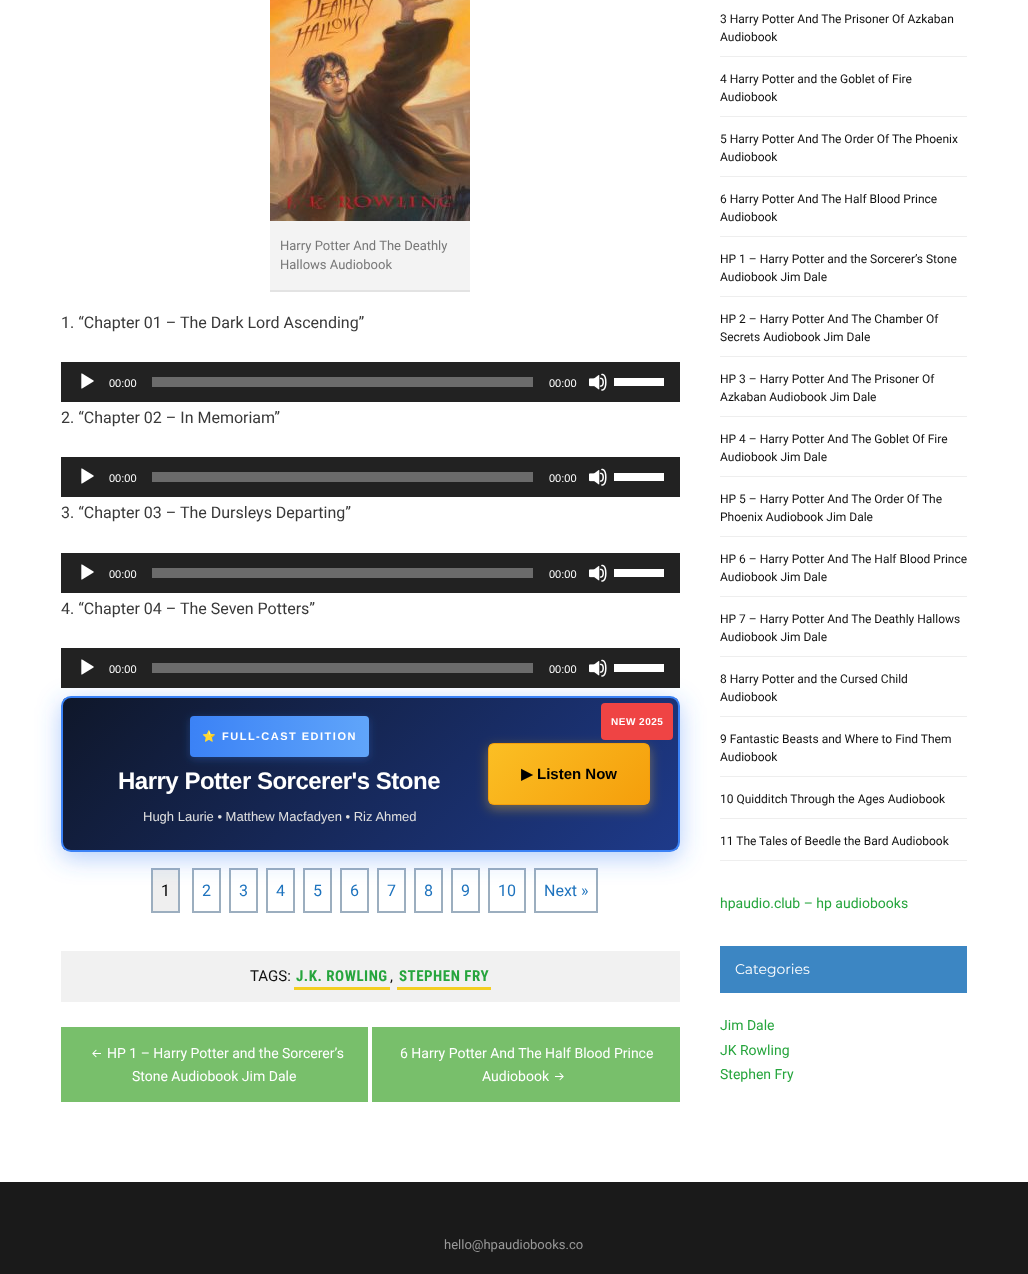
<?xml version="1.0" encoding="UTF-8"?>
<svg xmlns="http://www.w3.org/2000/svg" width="1028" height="1274">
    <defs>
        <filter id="blur1" x="-50%" y="-200%" width="200%" height="500%"><feGaussianBlur stdDeviation="12.5"/></filter>
        <clipPath id="clip1"><rect x="61" y="696" width="619" height="156" rx="10"/></clipPath>
        <linearGradient id="g1" gradientUnits="userSpaceOnUse" x1="179" y1="582" x2="562" y2="966"><stop offset="0" stop-color="#0F172A"/><stop offset="1" stop-color="#1E3A8A"/></linearGradient>
        <filter id="blur2" x="-50%" y="-200%" width="200%" height="500%"><feGaussianBlur stdDeviation="6"/></filter>
        <filter id="blur3" x="-50%" y="-200%" width="200%" height="500%"><feGaussianBlur stdDeviation="4"/></filter>
        <linearGradient id="g2" gradientUnits="userSpaceOnUse" x1="190" y1="737" x2="369" y2="737"><stop offset="0" stop-color="#3B82F6"/><stop offset="1" stop-color="#60A5FA"/></linearGradient>
        <clipPath id="clip2"><rect x="488" y="743" width="162" height="62" rx="6"/></clipPath>
        <linearGradient id="g3" gradientUnits="userSpaceOnUse" x1="514" y1="719" x2="624" y2="829"><stop offset="0" stop-color="#FBBF24"/><stop offset="1" stop-color="#F59E0B"/></linearGradient>
    </defs>
    <rect width="100%" height="100%" fill="#FFFFFF"/>
    <rect x="270" y="221" width="200" height="69" fill="#F3F3F3"/>
    <rect x="270" y="290" width="200" height="2" fill="#E3E3E3"/>
    <image x="270" y="0" width="200" height="221" href="img_01.png"/>
    <text font-family="Roboto" font-size="13" fill="#777777">
        <tspan x="280" y="250">Harry Potter And The Deathly</tspan>
        <tspan x="280" y="269">Hallows Audiobook</tspan>
    </text>
    <text x="61" y="328" font-family="Roboto" font-size="16" fill="#393939">1. “Chapter 01 – The Dark Lord Ascending”</text>
    <rect x="61" y="362" width="619" height="40" fill="#222222"/>
    <image x="81" y="373" width="13" height="16" href="img_02.png"/>
    <text x="109" y="387" font-family="Liberation Sans" font-size="11" fill="#FFFFFF">00:00</text>
    <rect x="152" y="377" width="381" height="10" fill="#6B6B6B"/>
    <text x="549" y="387" font-family="Liberation Sans" font-size="11" fill="#FFFFFF">00:00</text>
    <image x="589" y="373" width="18" height="18" href="img_03.png"/>
    <rect x="614" y="378" width="50" height="8" fill="#FFFFFF"/>
    <text x="61" y="423" font-family="Roboto" font-size="16" fill="#393939">2. “Chapter 02 – In Memoriam”</text>
    <rect x="61" y="457" width="619" height="40" fill="#222222"/>
    <image x="81" y="468" width="13" height="16" href="img_02.png"/>
    <text x="109" y="482" font-family="Liberation Sans" font-size="11" fill="#FFFFFF">00:00</text>
    <rect x="152" y="472" width="381" height="10" fill="#6B6B6B"/>
    <text x="549" y="482" font-family="Liberation Sans" font-size="11" fill="#FFFFFF">00:00</text>
    <image x="589" y="468" width="18" height="18" href="img_03.png"/>
    <rect x="614" y="473" width="50" height="8" fill="#FFFFFF"/>
    <text x="61" y="518" font-family="Roboto" font-size="16" fill="#393939">3. “Chapter 03 – The Dursleys Departing”</text>
    <rect x="61" y="553" width="619" height="40" fill="#222222"/>
    <image x="81" y="564" width="13" height="16" href="img_02.png"/>
    <text x="109" y="578" font-family="Liberation Sans" font-size="11" fill="#FFFFFF">00:00</text>
    <rect x="152" y="568" width="381" height="10" fill="#6B6B6B"/>
    <text x="549" y="578" font-family="Liberation Sans" font-size="11" fill="#FFFFFF">00:00</text>
    <image x="589" y="564" width="18" height="18" href="img_03.png"/>
    <rect x="614" y="569" width="50" height="8" fill="#FFFFFF"/>
    <text x="61" y="614" font-family="Roboto" font-size="16" fill="#393939">4. “Chapter 04 – The Seven Potters”</text>
    <rect x="152" y="869" width="27" height="43" fill="#EFEFEF" stroke="#9CAEBF" stroke-width="2"/>
    <rect x="193" y="869" width="27" height="43" fill="none" stroke="#9CAEBF" stroke-width="2"/>
    <rect x="230" y="869" width="27" height="43" fill="none" stroke="#9CAEBF" stroke-width="2"/>
    <rect x="267" y="869" width="27" height="43" fill="none" stroke="#9CAEBF" stroke-width="2"/>
    <rect x="304" y="869" width="27" height="43" fill="none" stroke="#9CAEBF" stroke-width="2"/>
    <rect x="341" y="869" width="27" height="43" fill="none" stroke="#9CAEBF" stroke-width="2"/>
    <rect x="378" y="869" width="27" height="43" fill="none" stroke="#9CAEBF" stroke-width="2"/>
    <rect x="415" y="869" width="27" height="43" fill="none" stroke="#9CAEBF" stroke-width="2"/>
    <rect x="452" y="869" width="27" height="43" fill="none" stroke="#9CAEBF" stroke-width="2"/>
    <rect x="489" y="869" width="36" height="43" fill="none" stroke="#9CAEBF" stroke-width="2"/>
    <rect x="535" y="869" width="62" height="43" fill="none" stroke="#9CAEBF" stroke-width="2"/>
    <rect x="61" y="702" width="619" height="156" rx="10" fill="#3B82F6" fill-opacity="0.4" filter="url(#blur1)"/>
    <rect x="61" y="648" width="619" height="40" fill="#222222"/>
    <image x="81" y="659" width="13" height="16" href="img_02.png"/>
    <text x="109" y="673" font-family="Liberation Sans" font-size="11" fill="#FFFFFF">00:00</text>
    <rect x="152" y="663" width="381" height="10" fill="#6B6B6B"/>
    <text x="549" y="673" font-family="Liberation Sans" font-size="11" fill="#FFFFFF">00:00</text>
    <image x="589" y="659" width="18" height="18" href="img_03.png"/>
    <rect x="614" y="664" width="50" height="8" fill="#FFFFFF"/>
    <g clip-path="url(#clip1)">
        <rect x="63" y="698" width="615" height="152" fill="url(#g1)"/>
    </g>
    <rect x="62" y="697" width="617" height="154" rx="9" fill="none" stroke="#3B82F6" stroke-width="2"/>
    <rect x="488" y="747" width="162" height="62" rx="6" fill="#FBBF24" fill-opacity="0.4" filter="url(#blur2)"/>
    <rect x="601" y="703" width="72" height="37" rx="4" fill="#EF4444"/>
    <text x="611" y="725" font-family="Liberation Sans" font-size="10" font-weight="700" letter-spacing="0.5" fill="#FFFFFF">NEW 2025</text>
    <rect x="190" y="718" width="179" height="41" rx="4" fill="#3B82F6" fill-opacity="0.3" filter="url(#blur3)"/>
    <rect x="190" y="716" width="179" height="41" rx="4" fill="url(#g2)"/>
    <text x="202" y="740" font-family="Noto Color Emoji" font-size="11" font-weight="700" letter-spacing="1.5" fill="#FFFFFF">⭐</text>
    <text x="222" y="740" font-family="Liberation Sans" font-size="11" font-weight="700" letter-spacing="1.5" fill="#FFFFFF">FULL-CAST EDITION</text>
    <text x="118" y="789" font-family="Liberation Sans" font-size="24" font-weight="700" letter-spacing="-0.5" fill="#FFFFFF">Harry Potter Sorcerer's Stone</text>
    <text x="143" y="821" font-family="Liberation Sans" font-size="13" fill="#E0E0E0">Hugh Laurie • Matthew Macfadyen • Riz Ahmed</text>
    <g clip-path="url(#clip2)">
        <rect x="489" y="744" width="160" height="60" fill="url(#g3)"/>
    </g>
    <rect x="488.5" y="743.5" width="161" height="61" rx="5.5" fill="none" stroke="#F59E0B"/>
    <text x="521" y="779" font-family="DejaVu Sans" font-size="15" font-weight="700" fill="#000000">▶</text>
    <text x="537" y="779" font-family="Liberation Sans" font-size="15" font-weight="700" fill="#000000">Listen Now</text>
    <text x="161" y="896" font-family="Roboto" font-size="16" fill="#000000">1</text>
    <text x="202" y="896" font-family="Roboto" font-size="16" fill="#1E73BE">2</text>
    <text x="239" y="896" font-family="Roboto" font-size="16" fill="#1E73BE">3</text>
    <text x="276" y="896" font-family="Roboto" font-size="16" fill="#1E73BE">4</text>
    <text x="313" y="896" font-family="Roboto" font-size="16" fill="#1E73BE">5</text>
    <text x="350" y="896" font-family="Roboto" font-size="16" fill="#1E73BE">6</text>
    <text x="387" y="896" font-family="Roboto" font-size="16" fill="#1E73BE">7</text>
    <text x="424" y="896" font-family="Roboto" font-size="16" fill="#1E73BE">8</text>
    <text x="461" y="896" font-family="Roboto" font-size="16" fill="#1E73BE">9</text>
    <text x="498" y="896" font-family="Roboto" font-size="16" fill="#1E73BE">10</text>
    <text x="544" y="896" font-family="Roboto" font-size="16" fill="#1E73BE">Next »</text>
    <rect x="61" y="951" width="619" height="51" fill="#F1F1F1"/>
    <text x="250" y="981" font-family="Roboto" font-size="15" fill="#111111">TAGS:</text>
    <text x="296" y="981" font-family="Roboto Condensed" font-size="15" font-weight="700" letter-spacing="0.5" fill="#26A53D">J.K. ROWLING</text>
    <rect x="294" y="987" width="96" height="3" fill="#F4CE21"/>
    <text x="390" y="981" font-family="Roboto" font-size="15" fill="#111111">,</text>
    <text x="399" y="981" font-family="Roboto Condensed" font-size="15" font-weight="700" letter-spacing="0.5" fill="#26A53D">STEPHEN FRY</text>
    <rect x="397" y="987" width="94" height="3" fill="#F4CE21"/>
    <rect x="61" y="1027" width="307" height="75" fill="#78BF6B"/>
    <image x="92" y="1049" width="9" height="9" href="img_04.png"/>
    <text x="107" y="1058" font-family="Roboto" font-size="14" fill="#FFFFFF">HP 1 – Harry Potter and the Sorcerer’s</text>
    <text x="132" y="1081" font-family="Roboto" font-size="14" fill="#FFFFFF">Stone Audiobook Jim Dale</text>
    <rect x="372" y="1027" width="308" height="75" fill="#78BF6B"/>
    <text x="400" y="1058" font-family="Roboto" font-size="14" fill="#FFFFFF">6 Harry Potter And The Half Blood Prince</text>
    <text x="482" y="1081" font-family="Roboto" font-size="14" fill="#FFFFFF">Audiobook</text>
    <image x="555" y="1072" width="9" height="9" href="img_05.png"/>
    <rect x="720" y="56" width="247" height="1" fill="#EEEEEE"/>
    <text font-family="Roboto" font-size="12" fill="#111111">
        <tspan x="720" y="23">3 Harry Potter And The Prisoner Of Azkaban</tspan>
        <tspan x="720" y="41">Audiobook</tspan>
    </text>
    <rect x="720" y="116" width="247" height="1" fill="#EEEEEE"/>
    <text font-family="Roboto" font-size="12" fill="#111111">
        <tspan x="720" y="83">4 Harry Potter and the Goblet of Fire</tspan>
        <tspan x="720" y="101">Audiobook</tspan>
    </text>
    <rect x="720" y="176" width="247" height="1" fill="#EEEEEE"/>
    <text font-family="Roboto" font-size="12" fill="#111111">
        <tspan x="720" y="143">5 Harry Potter And The Order Of The Phoenix</tspan>
        <tspan x="720" y="161">Audiobook</tspan>
    </text>
    <rect x="720" y="236" width="247" height="1" fill="#EEEEEE"/>
    <text font-family="Roboto" font-size="12" fill="#111111">
        <tspan x="720" y="203">6 Harry Potter And The Half Blood Prince</tspan>
        <tspan x="720" y="221">Audiobook</tspan>
    </text>
    <rect x="720" y="296" width="247" height="1" fill="#EEEEEE"/>
    <text font-family="Roboto" font-size="12" fill="#111111">
        <tspan x="720" y="263">HP 1 – Harry Potter and the Sorcerer’s Stone</tspan>
        <tspan x="720" y="281">Audiobook Jim Dale</tspan>
    </text>
    <rect x="720" y="356" width="247" height="1" fill="#EEEEEE"/>
    <text font-family="Roboto" font-size="12" fill="#111111">
        <tspan x="720" y="323">HP 2 – Harry Potter And The Chamber Of</tspan>
        <tspan x="720" y="341">Secrets Audiobook Jim Dale</tspan>
    </text>
    <rect x="720" y="416" width="247" height="1" fill="#EEEEEE"/>
    <text font-family="Roboto" font-size="12" fill="#111111">
        <tspan x="720" y="383">HP 3 – Harry Potter And The Prisoner Of</tspan>
        <tspan x="720" y="401">Azkaban Audiobook Jim Dale</tspan>
    </text>
    <rect x="720" y="476" width="247" height="1" fill="#EEEEEE"/>
    <text font-family="Roboto" font-size="12" fill="#111111">
        <tspan x="720" y="443">HP 4 – Harry Potter And The Goblet Of Fire</tspan>
        <tspan x="720" y="461">Audiobook Jim Dale</tspan>
    </text>
    <rect x="720" y="536" width="247" height="1" fill="#EEEEEE"/>
    <text font-family="Roboto" font-size="12" fill="#111111">
        <tspan x="720" y="503">HP 5 – Harry Potter And The Order Of The</tspan>
        <tspan x="720" y="521">Phoenix Audiobook Jim Dale</tspan>
    </text>
    <rect x="720" y="596" width="247" height="1" fill="#EEEEEE"/>
    <text font-family="Roboto" font-size="12" fill="#111111">
        <tspan x="720" y="563">HP 6 – Harry Potter And The Half Blood Prince</tspan>
        <tspan x="720" y="581">Audiobook Jim Dale</tspan>
    </text>
    <rect x="720" y="656" width="247" height="1" fill="#EEEEEE"/>
    <text font-family="Roboto" font-size="12" fill="#111111">
        <tspan x="720" y="623">HP 7 – Harry Potter And The Deathly Hallows</tspan>
        <tspan x="720" y="641">Audiobook Jim Dale</tspan>
    </text>
    <rect x="720" y="716" width="247" height="1" fill="#EEEEEE"/>
    <text font-family="Roboto" font-size="12" fill="#111111">
        <tspan x="720" y="683">8 Harry Potter and the Cursed Child</tspan>
        <tspan x="720" y="701">Audiobook</tspan>
    </text>
    <rect x="720" y="776" width="247" height="1" fill="#EEEEEE"/>
    <text font-family="Roboto" font-size="12" fill="#111111">
        <tspan x="720" y="743">9 Fantastic Beasts and Where to Find Them</tspan>
        <tspan x="720" y="761">Audiobook</tspan>
    </text>
    <rect x="720" y="818" width="247" height="1" fill="#EEEEEE"/>
    <text x="720" y="803" font-family="Roboto" font-size="12" fill="#111111">10 Quidditch Through the Ages Audiobook</text>
    <rect x="720" y="860" width="247" height="1" fill="#EEEEEE"/>
    <text x="720" y="845" font-family="Roboto" font-size="12" fill="#111111">11 The Tales of Beedle the Bard Audiobook</text>
    <text x="720" y="908" font-family="Roboto" font-size="14" fill="#26A53D">hpaudio.club – hp audiobooks</text>
    <rect x="720" y="946" width="247" height="47" fill="#3C86C3"/>
    <text x="735" y="974" font-family="Montserrat" font-size="14" fill="#FFFFFF">Categories</text>
    <text font-family="Roboto" font-size="14" fill="#26A53D">
        <tspan x="720" y="1030">Jim Dale</tspan>
        <tspan x="720" y="1055">JK Rowling</tspan>
        <tspan x="720" y="1079">Stephen Fry</tspan>
    </text>
    <rect x="0" y="1182" width="1028" height="92" fill="#1A1A1A"/>
    <text x="444" y="1249" font-family="Roboto" font-size="13" fill="#999999">hello@hpaudiobooks.co</text>
</svg>
